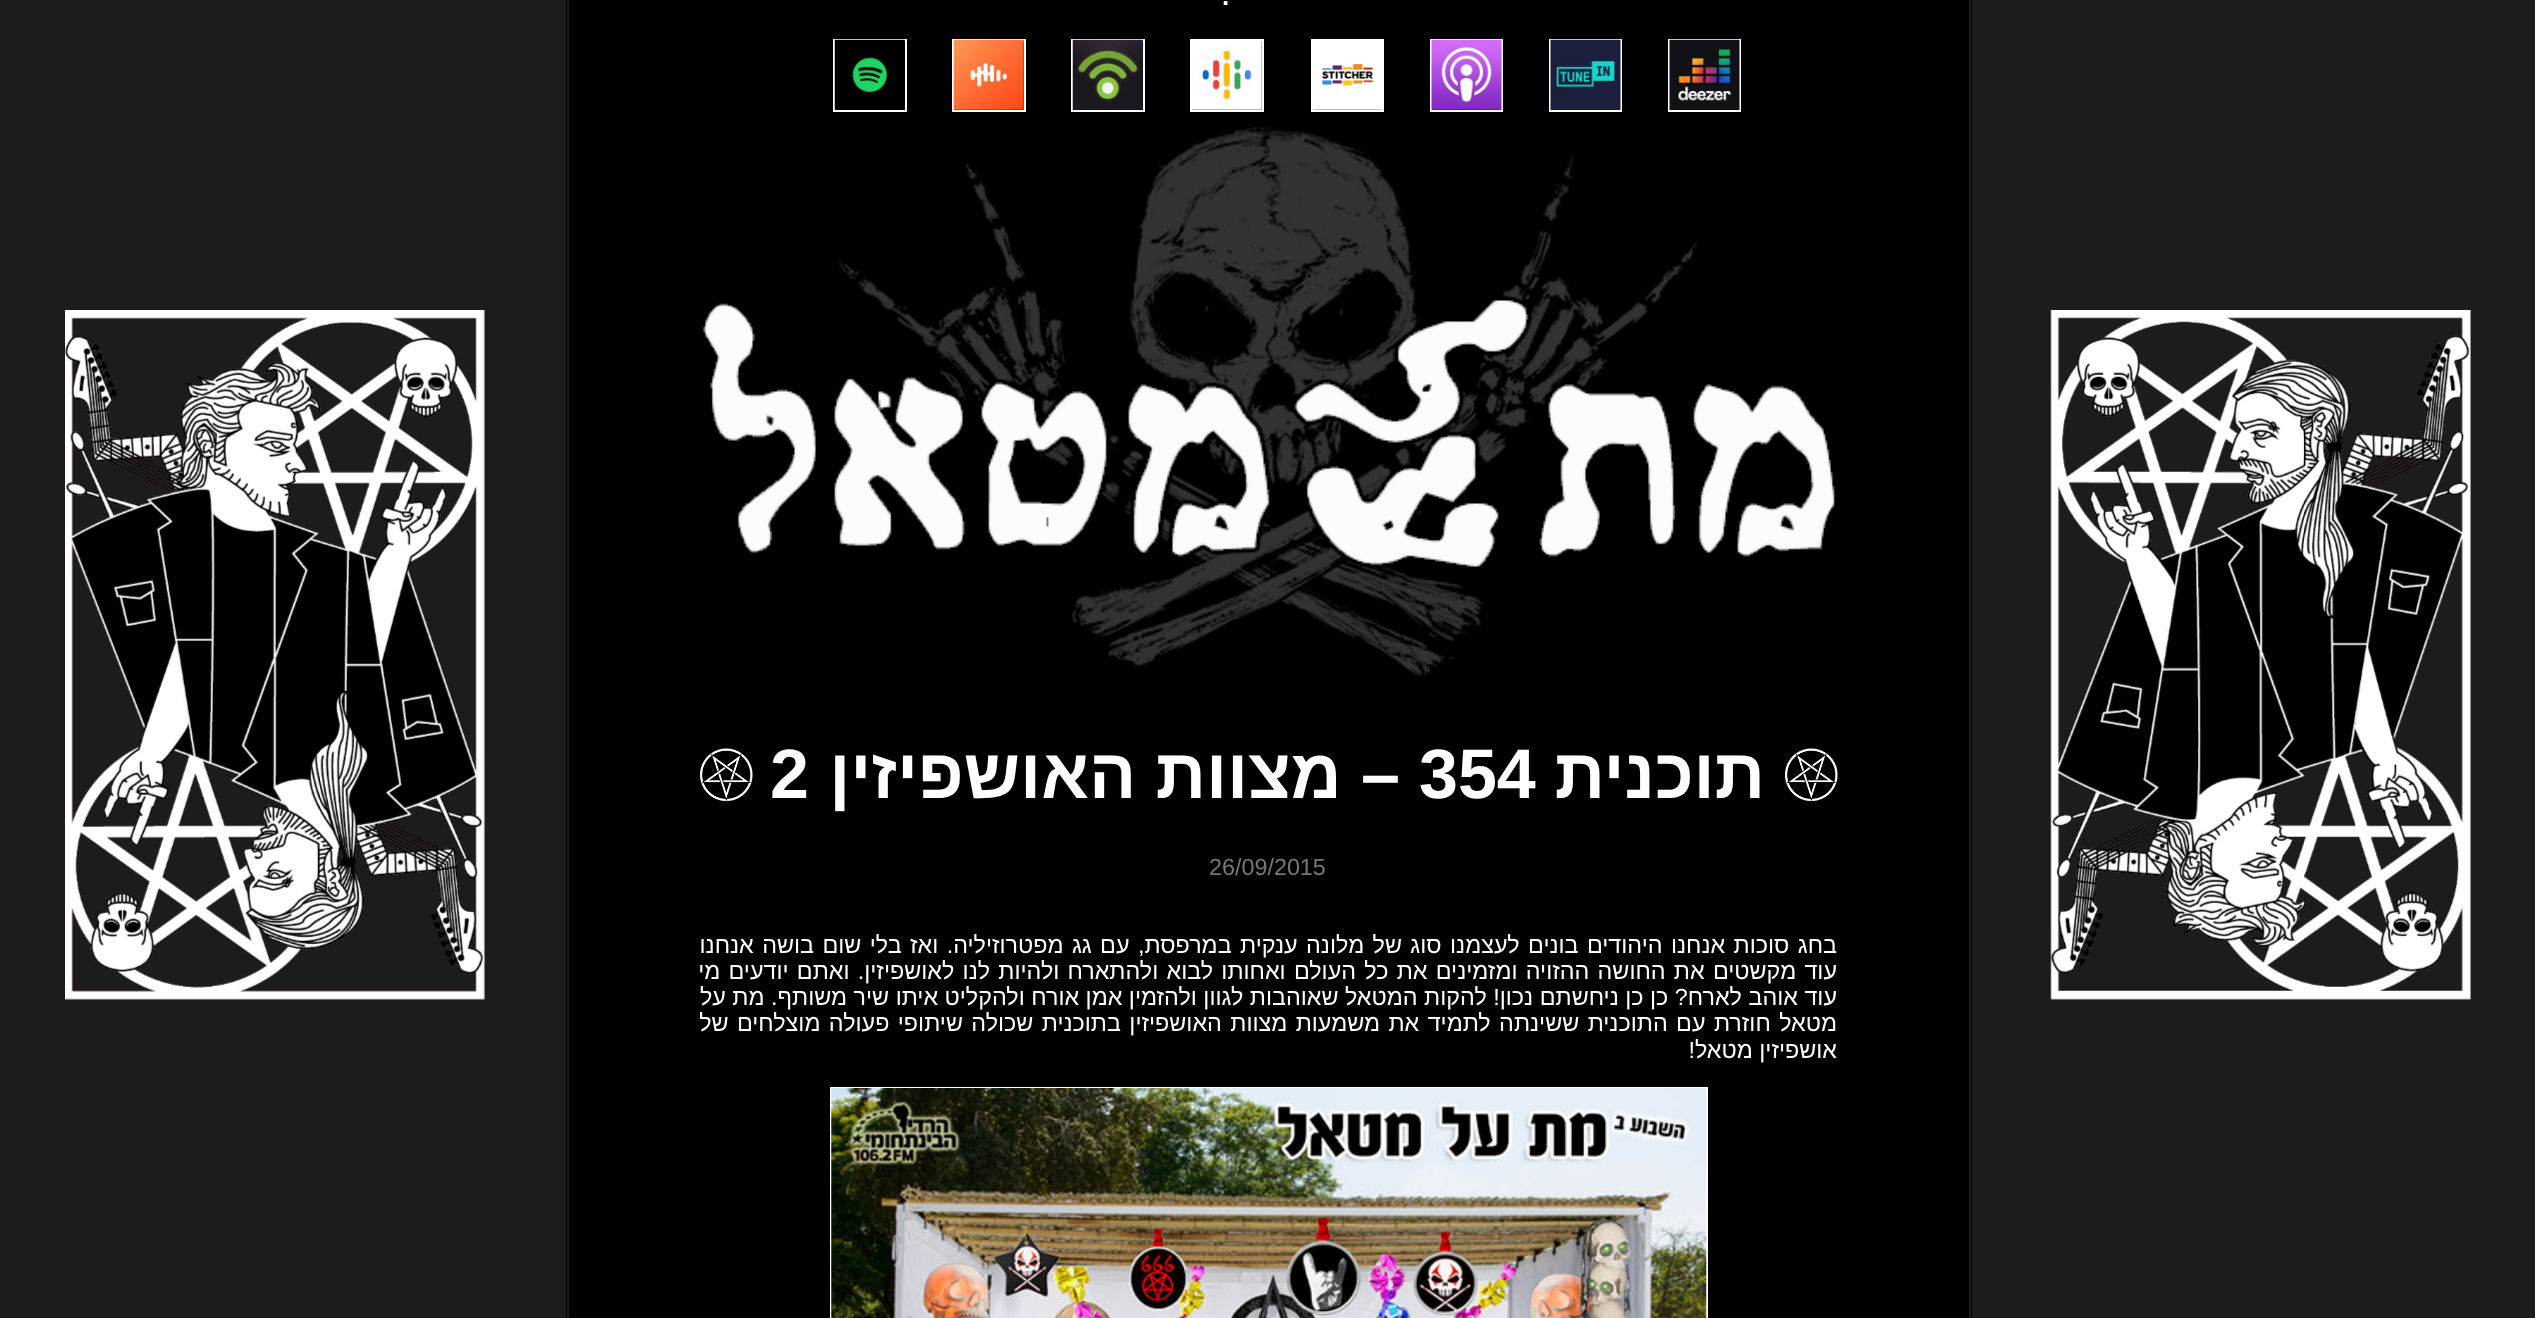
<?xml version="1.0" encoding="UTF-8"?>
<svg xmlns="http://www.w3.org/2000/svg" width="2535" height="1318">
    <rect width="100%" height="100%" fill="#1C1C1C"/>
    <image x="2050" y="310" width="421" height="690" href="img_01.png"/>
    <rect x="566" y="0" width="1406" height="1318" fill="#000000"/>
    <rect x="1969" y="0" width="2" height="1318" fill="#1C1C1C"/>
    <rect x="567" y="0" width="2" height="1318" fill="#1C1C1C"/>
    <text x="1222" y="5" font-family="Liberation Sans" font-size="26" font-weight="700" fill="#FFFFFF">.</text>
    <rect x="1669" y="40" width="71" height="71" fill="none" stroke="#FFFFFF" stroke-width="2"/>
    <image x="1669" y="39" width="71" height="71" href="img_02.png"/>
    <rect x="1550" y="40" width="71" height="71" fill="none" stroke="#FFFFFF" stroke-width="2"/>
    <image x="1550" y="39" width="71" height="71" href="img_03.png"/>
    <rect x="1431" y="40" width="71" height="71" fill="none" stroke="#FFFFFF" stroke-width="2"/>
    <image x="1431" y="39" width="71" height="71" href="img_04.png"/>
    <rect x="1312" y="40" width="71" height="71" fill="none" stroke="#FFFFFF" stroke-width="2"/>
    <image x="1313" y="41" width="69" height="69" href="img_05.png"/>
    <rect x="1191" y="40" width="72" height="71" fill="none" stroke="#FFFFFF" stroke-width="2"/>
    <image x="1192" y="41" width="70" height="69" href="img_06.png"/>
    <rect x="1072" y="40" width="72" height="71" fill="none" stroke="#FFFFFF" stroke-width="2"/>
    <image x="1072" y="39" width="71" height="71" href="img_07.png"/>
    <rect x="953" y="40" width="72" height="71" fill="none" stroke="#FFFFFF" stroke-width="2"/>
    <image x="953" y="39" width="71" height="71" href="img_08.png"/>
    <rect x="834" y="40" width="72" height="71" fill="none" stroke="#FFFFFF" stroke-width="2"/>
    <image x="834" y="39" width="71" height="71" href="img_09.png"/>
    <image x="703" y="126" width="1132" height="551" href="img_10.png"/>
    <image x="1785" y="748" width="53" height="53" href="img_11.png"/>
    <text x="1765" y="798" font-family="Liberation Sans" font-size="70" font-weight="700" direction="rtl" fill="#FFFFFF">תוכנית</text>
    <text x="1419" y="798" font-family="Liberation Sans" font-size="70" font-weight="700" fill="#FFFFFF">354</text>
    <text x="1400" y="798" font-family="Liberation Sans" font-size="70" font-weight="700" direction="rtl" fill="#FFFFFF">– מצוות האושפיזין</text>
    <text x="770" y="798" font-family="Liberation Sans" font-size="70" font-weight="700" fill="#FFFFFF">2</text>
    <image x="700" y="748" width="53" height="53" href="img_12.png"/>
    <text x="1209" y="875" font-family="Liberation Sans" font-size="23.35" fill="#777777">26/09/2015</text>
    <text font-family="Liberation Sans" font-size="23.35" direction="rtl" fill="#FFFFFF">
        <tspan x="1837" y="953" word-spacing="1.9">בחג סוכות אנחנו היהודים בונים לעצמנו סוג של מלונה ענקית במרפסת, עם גג מפטרוזיליה. ואז בלי שום בושה אנחנו</tspan>
        <tspan x="1837" y="979" word-spacing="1.75">עוד מקשטים את החושה ההזויה ומזמינים את כל העולם ואחותו לבוא ולהתארח ולהיות לנו לאושפיזין. ואתם יודעים מי</tspan>
        <tspan x="1837" y="1005">עוד אוהב לארח? כן כן ניחשתם נכון! להקות המטאל שאוהבות לגוון ולהזמין אמן אורח ולהקליט איתו שיר משותף. מת על</tspan>
        <tspan x="1837" y="1031" word-spacing="1.9">מטאל חוזרת עם התוכנית ששינתה לתמיד את משמעות מצוות האושפיזין בתוכנית שכולה שיתופי פעולה מוצלחים של</tspan>
        <tspan x="1837" y="1058">אושפיזין מטאל!</tspan>
    </text>
    <rect x="831" y="1088" width="876" height="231" fill="none" stroke="#FFFFFF" stroke-width="2"/>
    <image x="831" y="1088" width="876" height="230" href="img_13.png"/>
    <image x="65" y="310" width="420" height="690" href="img_14.png"/>
</svg>
